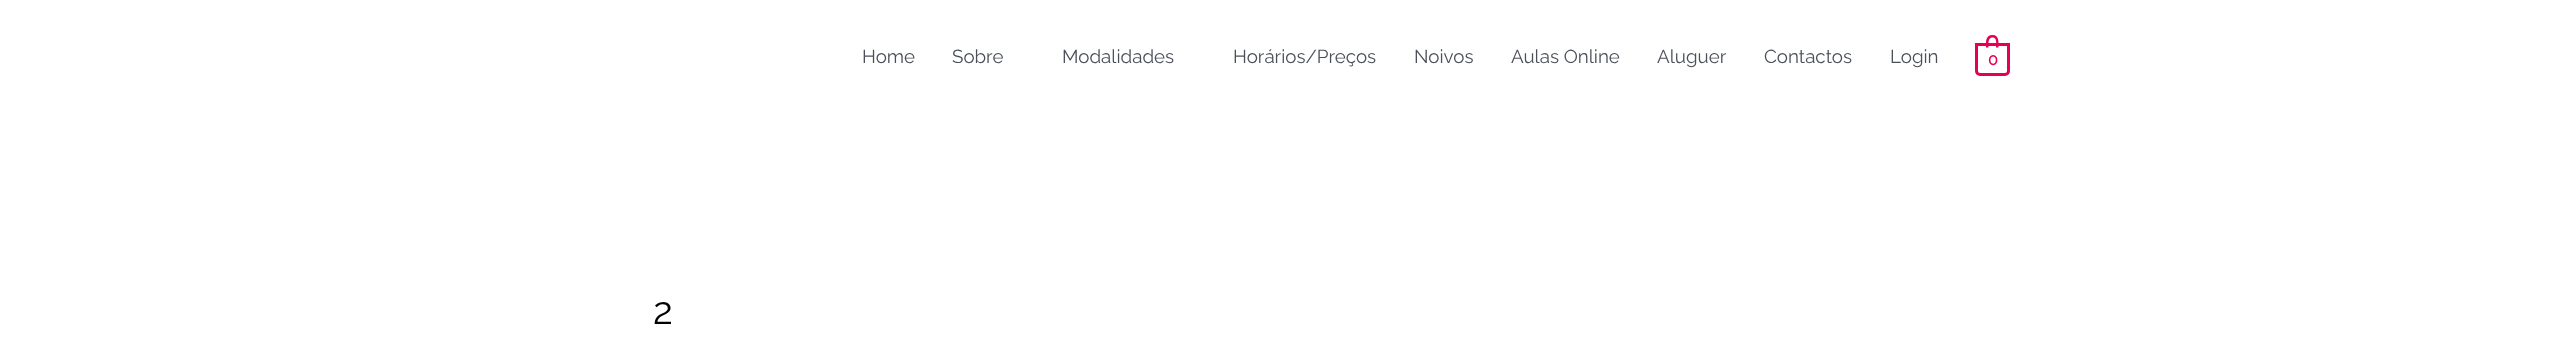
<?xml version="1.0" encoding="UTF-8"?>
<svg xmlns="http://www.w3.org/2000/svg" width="2556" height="350">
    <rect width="100%" height="100%" fill="#FFFFFF"/>
    <text x="862" y="63" font-family="Raleway" font-size="18.75" font-weight="100" fill="#4B4F58">Home</text>
    <text x="952" y="63" font-family="Raleway" font-size="18.75" font-weight="100" fill="#4B4F58">Sobre</text>
    <text x="1062" y="63" font-family="Raleway" font-size="18.75" font-weight="100" fill="#4B4F58">Modalidades</text>
    <text x="1233" y="63" font-family="Raleway" font-size="18.75" font-weight="100" fill="#4B4F58">Horários/Preços</text>
    <text x="1414" y="63" font-family="Raleway" font-size="18.75" font-weight="100" fill="#4B4F58">Noivos</text>
    <text x="1511" y="63" font-family="Raleway" font-size="18.75" font-weight="100" fill="#4B4F58">Aulas Online</text>
    <text x="1657" y="63" font-family="Raleway" font-size="18.75" font-weight="100" fill="#4B4F58">Aluguer</text>
    <text x="1764" y="63" font-family="Raleway" font-size="18.75" font-weight="100" fill="#4B4F58">Contactos</text>
    <text x="1890" y="63" font-family="Raleway" font-size="18.75" font-weight="100" fill="#4B4F58">Login</text>
    <path d="M 1976.5 44.5 H 2008.5 V 71 C 2008.5 73 2007 74.5 2005 74.5 H 1980 C 1978 74.5 1976.5 73 1976.5 71 Z" fill="none" stroke="#E50054" stroke-width="3"/>
    <path d="M 1992.5 35 C 1999.5 35 1998.5 42.5 1998.5 47.5 H 1986 C 1986 42.5 1985 35 1992.5 35 Z M 1992.5 37.5 C 1997.5 37.5 1996 44.5 1996 47.5 H 1988.5 C 1988.5 44.5 1987.5 37.5 1992.5 37.5 Z" fill="#E50054" fill-rule="evenodd"/>
    <text x="1988" y="65" font-family="Raleway" font-size="16" font-weight="700" fill="#E50054">0</text>
    <text x="653" y="324" font-family="Raleway" font-size="38" font-weight="100" fill="#000000">2</text>
</svg>
